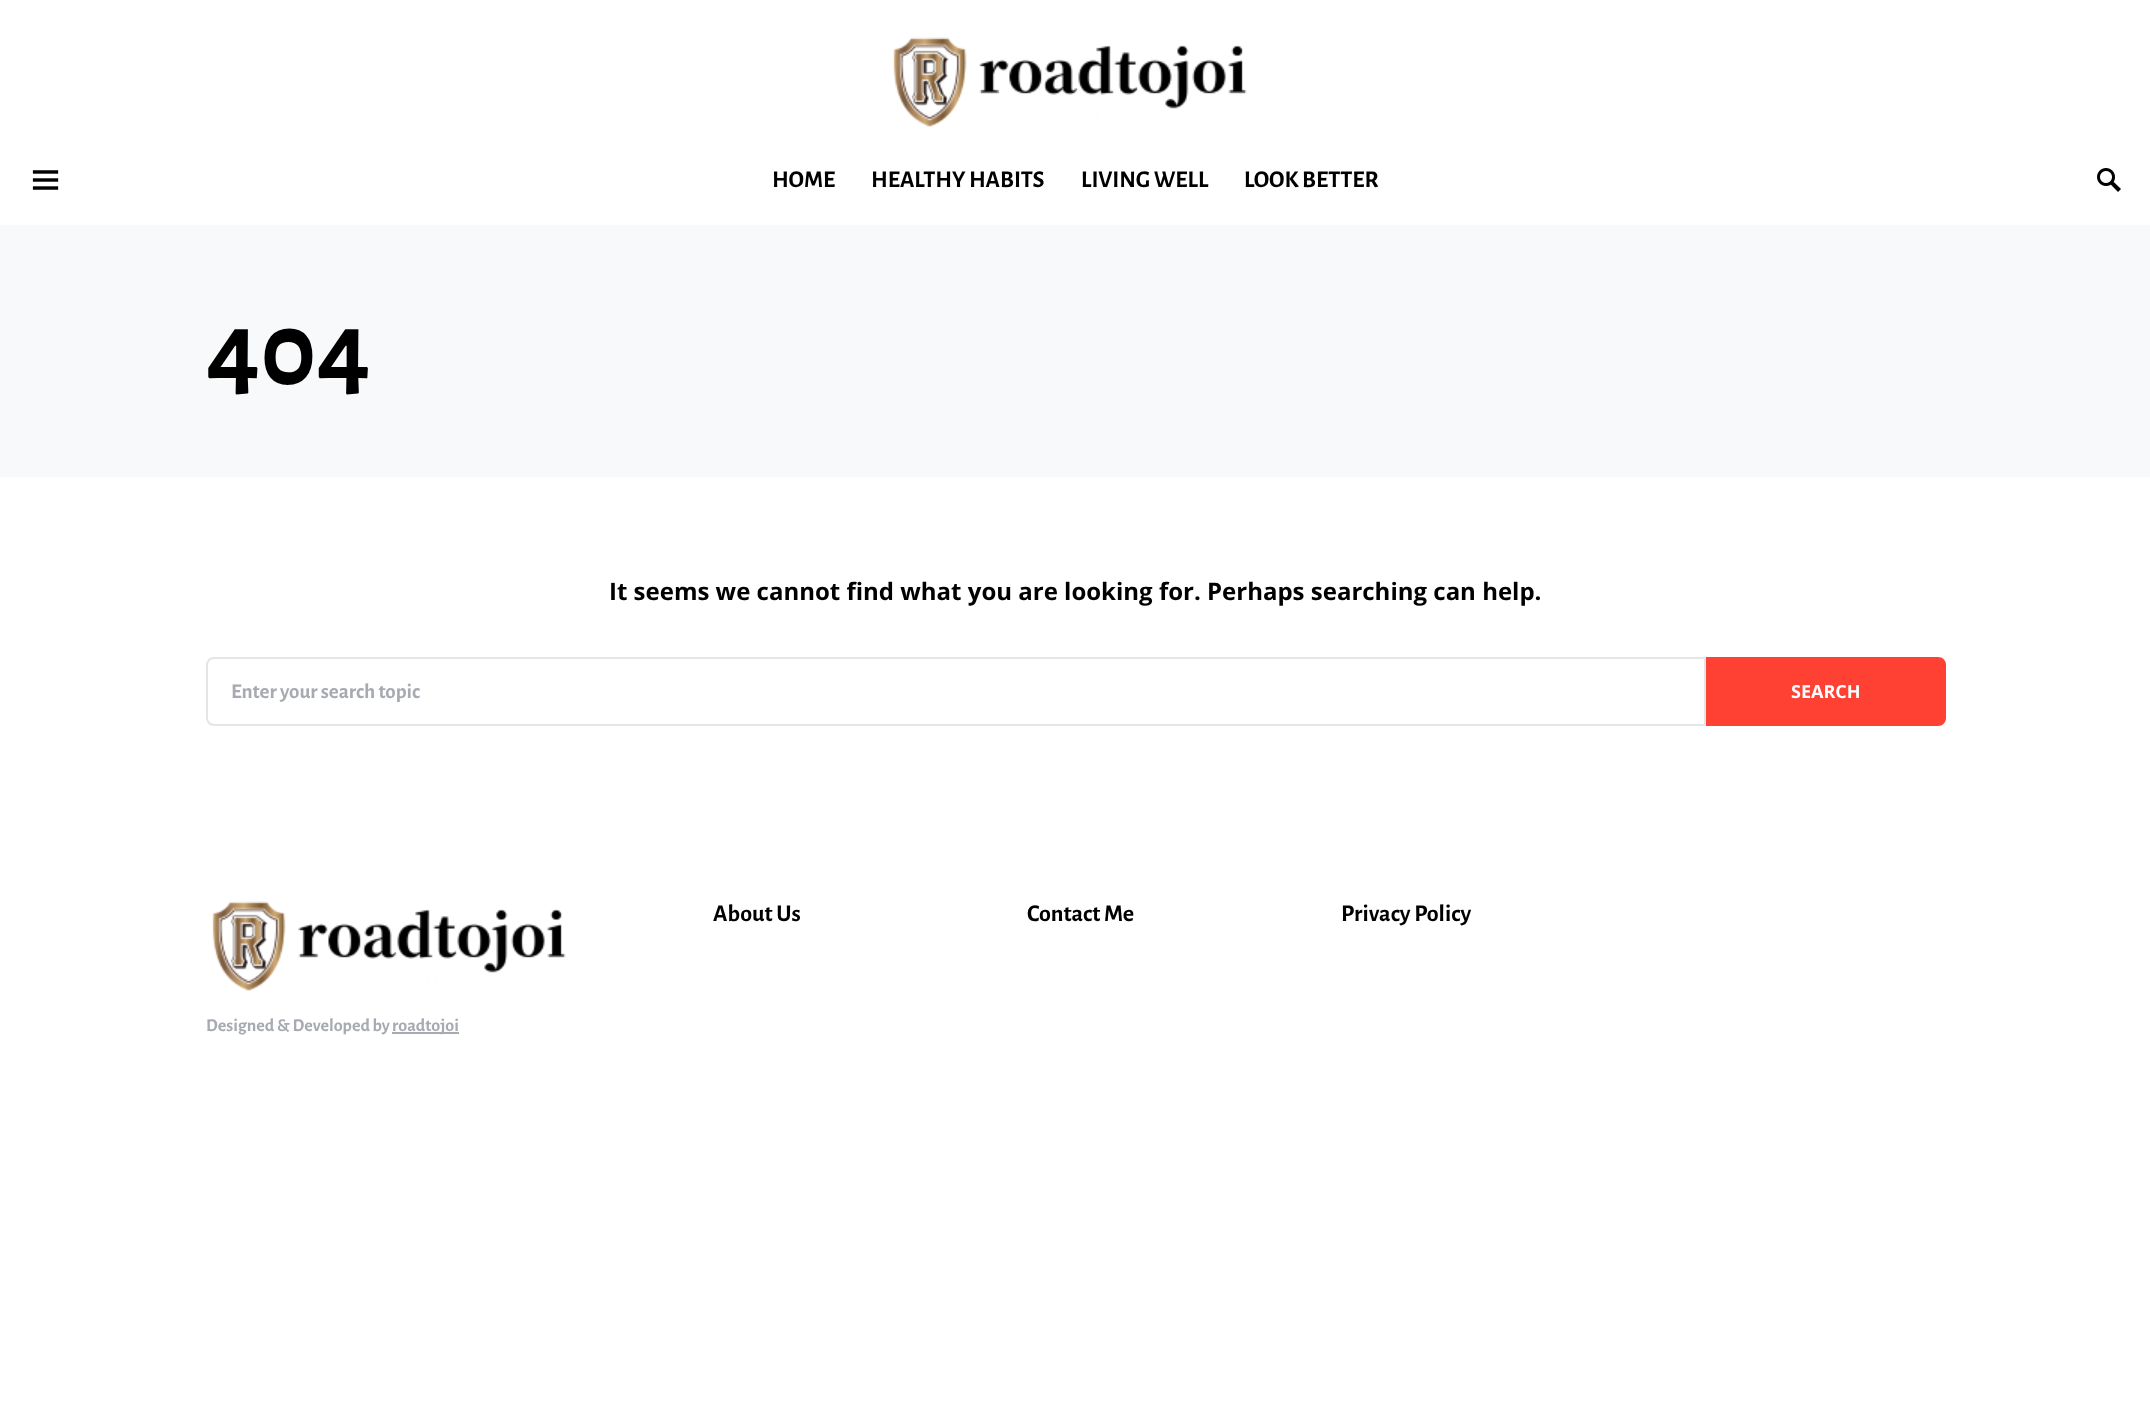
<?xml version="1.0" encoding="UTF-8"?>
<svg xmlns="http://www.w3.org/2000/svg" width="2150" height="1410">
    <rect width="100%" height="100%" fill="#FFFFFF"/>
    <image x="893" y="37" width="354" height="90" href="img_01.png"/>
    <image x="32" y="170" width="27" height="20" href="img_02.png"/>
    <text x="772" y="187" font-family="Alegreya Sans" font-size="24" font-weight="700" fill="#000000">HOME</text>
    <text x="871" y="187" font-family="Alegreya Sans" font-size="24" font-weight="700" fill="#000000">HEALTHY HABITS</text>
    <text x="1081" y="187" font-family="Alegreya Sans" font-size="24" font-weight="700" fill="#000000">LIVING WELL</text>
    <text x="1244" y="187" font-family="Alegreya Sans" font-size="24" font-weight="700" fill="#000000">LOOK BETTER</text>
    <image x="2097" y="168" width="24" height="24" href="img_03.png"/>
    <rect x="0" y="225" width="2150" height="252" fill="#F8F9FA"/>
    <text x="206" y="384" font-family="Alegreya Sans" font-size="108" font-weight="700" fill="#000000">404</text>
    <text x="609" y="600" font-family="Open Sans" font-size="24" font-weight="700" fill="#000000">It seems we cannot find what you are looking for. Perhaps searching can help.</text>
    <path d="M 214 658 H 1705 V 725 H 214 C 210 725 207 722 207 718 V 665 C 207 661 210 658 214 658 Z" fill="none" stroke="#E3E5E7" stroke-width="2"/>
    <text x="231" y="698" font-family="Alegreya Sans" font-size="21" font-weight="700" fill="#A8AAB2">Enter your search topic</text>
    <path d="M 1706 657 H 1938 C 1942.5 657 1946 660.5 1946 665 V 718 C 1946 722.5 1942.5 726 1938 726 H 1706 Z" fill="#FF4133"/>
    <text x="1791" y="698" font-family="Open Sans" font-size="18" font-weight="700" fill="#FFFFFF">SEARCH</text>
    <text x="713" y="921" font-family="Alegreya Sans" font-size="24" font-weight="700" fill="#000000">About Us</text>
    <text x="1027" y="921" font-family="Alegreya Sans" font-size="24" font-weight="700" fill="#000000">Contact Me</text>
    <text x="1341" y="921" font-family="Alegreya Sans" font-size="24" font-weight="700" fill="#000000">Privacy Policy</text>
    <image x="212" y="901" width="354" height="90" href="img_01.png"/>
    <text x="206" y="1031" font-family="Alegreya Sans" font-size="18" font-weight="700" fill="#A8AAB2">Designed &amp; Developed by</text>
    <rect x="392" y="1032" width="67" height="2" fill="#A8AAB2"/>
    <text x="392" y="1031" font-family="Alegreya Sans" font-size="18" font-weight="700" fill="#A8AAB2">roadtojoi</text>
</svg>
